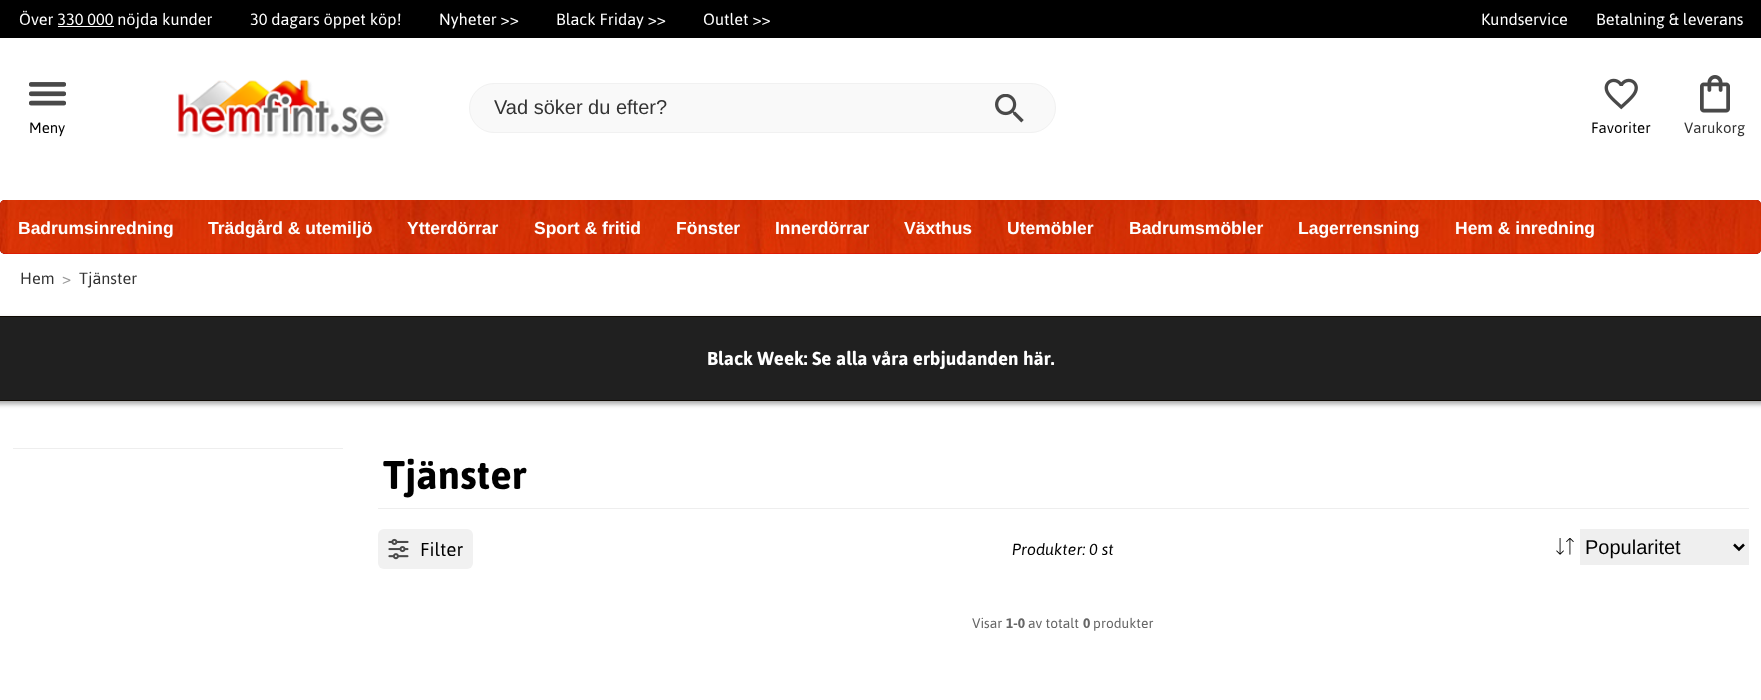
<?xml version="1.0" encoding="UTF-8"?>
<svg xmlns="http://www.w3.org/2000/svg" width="1761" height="700">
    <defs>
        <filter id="blur1" x="-50%" y="-200%" width="200%" height="500%"><feGaussianBlur stdDeviation="0.5"/></filter>
        <filter id="blur2" x="-50%" y="-200%" width="200%" height="500%"><feGaussianBlur stdDeviation="2.5"/></filter>
    </defs>
    <rect width="100%" height="100%" fill="#FFFFFF"/>
    <rect x="0" y="0" width="1761" height="38" fill="#000000"/>
    <text x="19" y="25" font-family="Asap" font-size="16.25" fill="#FFFFFF">Över 330 000 nöjda kunder</text>
    <rect x="58" y="26" width="56" height="1" fill="#FFFFFF"/>
    <text x="250" y="25" font-family="Asap" font-size="16.25" fill="#FFFFFF">30 dagars öppet köp!</text>
    <text x="439" y="25" font-family="Asap" font-size="16.25" fill="#FFFFFF">Nyheter &gt;&gt;</text>
    <text x="556" y="25" font-family="Asap" font-size="16.25" fill="#FFFFFF">Black Friday &gt;&gt;</text>
    <text x="703" y="25" font-family="Asap" font-size="16.25" fill="#FFFFFF">Outlet &gt;&gt;</text>
    <text x="1481" y="25" font-family="Asap" font-size="16.25" fill="#FFFFFF">Kundservice</text>
    <text x="1596" y="25" font-family="Asap" font-size="16.25" fill="#FFFFFF">Betalning &amp; leverans</text>
    <image x="177" y="79" width="213" height="60" href="img_01.png"/>
    <rect x="469.5" y="83.5" width="586" height="49" rx="24.5" fill="#F9F9F9" stroke="#F1F1F1"/>
    <text x="494" y="114" font-family="Liberation Sans" font-size="20" fill="#333333">Vad söker du efter?</text>
    <image x="995" y="94" width="29" height="29" href="img_02.png"/>
    <image x="29" y="82" width="37" height="24" href="img_03.png"/>
    <text x="29" y="133" font-family="Asap" font-size="15" fill="#000000">Meny</text>
    <image x="1604" y="78" width="34" height="32" href="img_04.png"/>
    <text x="1591" y="133" font-family="Asap" font-size="15" fill="#000000">Favoriter</text>
    <image x="1700" y="75" width="30" height="38" href="img_05.png"/>
    <text x="1684" y="133" font-family="Asap" font-size="15" fill="#333333">Varukorg</text>
    <rect x="0" y="200" width="1761" height="54" rx="5" fill="#000000" filter="url(#blur1)"/>
    <rect x="0" y="200" width="1761" height="54" rx="5" fill="#DF0000"/>
    <image x="0" y="200" width="1761" height="54" href="img_06.png"/>
    <text x="18" y="234" font-family="Liberation Sans" font-size="17.5" font-weight="700" fill="#FFFFFF">Badrumsinredning</text>
    <text x="208" y="234" font-family="Liberation Sans" font-size="17.5" font-weight="700" fill="#FFFFFF">Trädgård &amp; utemiljö</text>
    <text x="407" y="234" font-family="Liberation Sans" font-size="17.5" font-weight="700" fill="#FFFFFF">Ytterdörrar</text>
    <text x="534" y="234" font-family="Liberation Sans" font-size="17.5" font-weight="700" fill="#FFFFFF">Sport &amp; fritid</text>
    <text x="676" y="234" font-family="Liberation Sans" font-size="17.5" font-weight="700" fill="#FFFFFF">Fönster</text>
    <text x="775" y="234" font-family="Liberation Sans" font-size="17.5" font-weight="700" fill="#FFFFFF">Innerdörrar</text>
    <text x="904" y="234" font-family="Liberation Sans" font-size="17.5" font-weight="700" fill="#FFFFFF">Växthus</text>
    <text x="1007" y="234" font-family="Liberation Sans" font-size="17.5" font-weight="700" fill="#FFFFFF">Utemöbler</text>
    <text x="1129" y="234" font-family="Liberation Sans" font-size="17.5" font-weight="700" fill="#FFFFFF">Badrumsmöbler</text>
    <text x="1298" y="234" font-family="Liberation Sans" font-size="17.5" font-weight="700" fill="#FFFFFF">Lagerrensning</text>
    <text x="1455" y="234" font-family="Liberation Sans" font-size="17.5" font-weight="700" fill="#FFFFFF">Hem &amp; inredning</text>
    <text x="20" y="284" font-family="Asap" font-size="16.25" fill="#333333">Hem</text>
    <text x="62" y="284" font-family="Asap" font-size="16.25" fill="#999999">&gt;</text>
    <text x="79" y="284" font-family="Asap" font-size="16.25" fill="#333333">Tjänster</text>
    <rect x="-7" y="319" width="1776" height="85" fill="#000000" fill-opacity="0.35" filter="url(#blur2)"/>
    <rect x="-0.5" y="316.5" width="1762" height="84" fill="#202020" stroke="#0F0902"/>
    <text x="707" y="365" font-family="Asap" font-size="18.75" font-weight="700" fill="#FFFFFF">Black Week: Se alla våra erbjudanden här.</text>
    <rect x="13" y="448" width="330" height="1" fill="#EEEEEE"/>
    <rect x="378" y="508" width="1371" height="1" fill="#EEEEEE"/>
    <text x="383" y="489" font-family="Asap" font-size="40" font-weight="700" fill="#000000">Tjänster</text>
    <rect x="378" y="529" width="95" height="40" rx="6" fill="#F1F1F1"/>
    <image x="388" y="538" width="21" height="22" href="img_07.png"/>
    <text x="420" y="556" font-family="Asap" font-size="18.75" fill="#000000">Filter</text>
    <text x="1012" y="555" font-family="Asap" font-size="16" font-style="italic" fill="#000000">Produkter: 0 st</text>
    <image x="1556" y="538" width="18" height="17" href="img_08.png"/>
    <rect x="1580" y="529" width="169" height="36" fill="#EFEFEF"/>
    <path d="M 1734 544.5 L 1739 549.5 L 1744 544.5" fill="none" stroke="#000000" stroke-width="2.5"/>
    <text x="1585" y="554" font-family="Liberation Sans" font-size="20" fill="#000000">Popularitet</text>
    <text x="972" y="628" font-family="Asap" font-size="13.75" fill="#666666">Visar</text>
    <text x="1006" y="628" font-family="Asap" font-size="13.75" font-weight="700" fill="#666666">1-0</text>
    <text x="1028" y="628" font-family="Asap" font-size="13.75" fill="#666666">av totalt</text>
    <text x="1083" y="628" font-family="Asap" font-size="13.75" font-weight="700" fill="#666666">0</text>
    <text x="1093" y="628" font-family="Asap" font-size="13.75" fill="#666666">produkter</text>
</svg>
